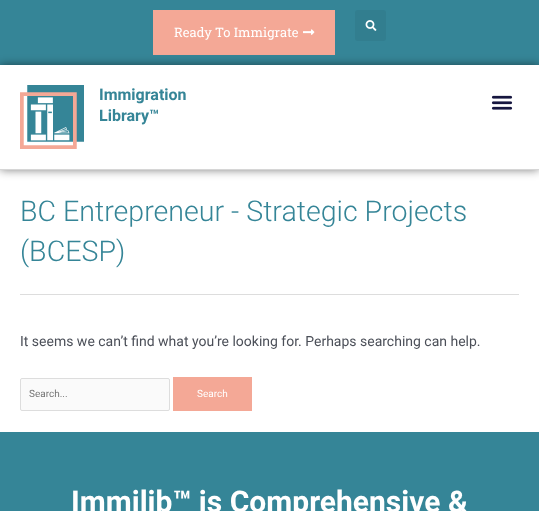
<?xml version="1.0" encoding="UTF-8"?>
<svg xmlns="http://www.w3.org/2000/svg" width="539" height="511">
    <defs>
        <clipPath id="clip1"><path d="M 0 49 H 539 V 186 H 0 Z M 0 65 H 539 V 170 H 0 Z" clip-rule="evenodd"/></clipPath>
        <filter id="blur1" x="-50%" y="-200%" width="200%" height="500%"><feGaussianBlur stdDeviation="5"/></filter>
    </defs>
    <rect width="100%" height="100%" fill="#FFFFFF"/>
    <rect x="0" y="0" width="539" height="65" fill="#358597"/>
    <rect x="153" y="10" width="182" height="45" fill="#F4A896"/>
    <text x="174" y="37" font-family="Roboto Slab" font-size="13" fill="#FFFFFF">Ready To Immigrate</text>
    <image x="303" y="29" width="12" height="6" href="img_01.png"/>
    <rect x="355" y="10" width="31" height="31" rx="3" fill="#327E8F"/>
    <image x="365" y="20" width="12" height="11" href="img_02.png"/>
    <g clip-path="url(#clip1)">
        <rect x="0" y="65" width="539" height="105" fill="#000000" fill-opacity="0.5" filter="url(#blur1)"/>
    </g>
    <rect x="0" y="169" width="539" height="1" fill="#D6D6D6"/>
    <image x="20" y="85" width="64" height="64" href="img_03.png"/>
    <text font-family="Roboto" font-size="16" font-weight="700" fill="#358597">
        <tspan x="99" y="100">Immigration</tspan>
        <tspan x="99" y="121">Library™</tspan>
    </text>
    <image x="491" y="95" width="22" height="15" href="img_04.png"/>
    <rect x="20" y="294" width="499" height="1" fill="#DDDDDD"/>
    <text font-family="Roboto" font-size="28.6" font-weight="300" fill="#358597">
        <tspan x="20" y="221">BC Entrepreneur - Strategic Projects</tspan>
        <tspan x="20" y="261">(BCESP)</tspan>
    </text>
    <text x="20" y="346" font-family="Roboto" font-size="14" fill="#4B4F58">It seems we can’t find what you’re looking for. Perhaps searching can help.</text>
    <rect x="20.5" y="378.5" width="149" height="32" rx="1.5" fill="#FAFAFA" stroke="#DDDDDD"/>
    <text x="29" y="397" font-family="Roboto" font-size="10" fill="#757575">Search...</text>
    <rect x="173" y="377" width="79" height="34" fill="#F4A896"/>
    <text x="197" y="397" font-family="Roboto" font-size="10" fill="#FFFFFF">Search</text>
    <rect x="0" y="432" width="539" height="79" fill="#358597"/>
    <text x="71" y="512" font-family="Roboto" font-size="30" font-weight="700" fill="#FFFFFF">Immilib™ is Comprehensive &amp;</text>
</svg>
